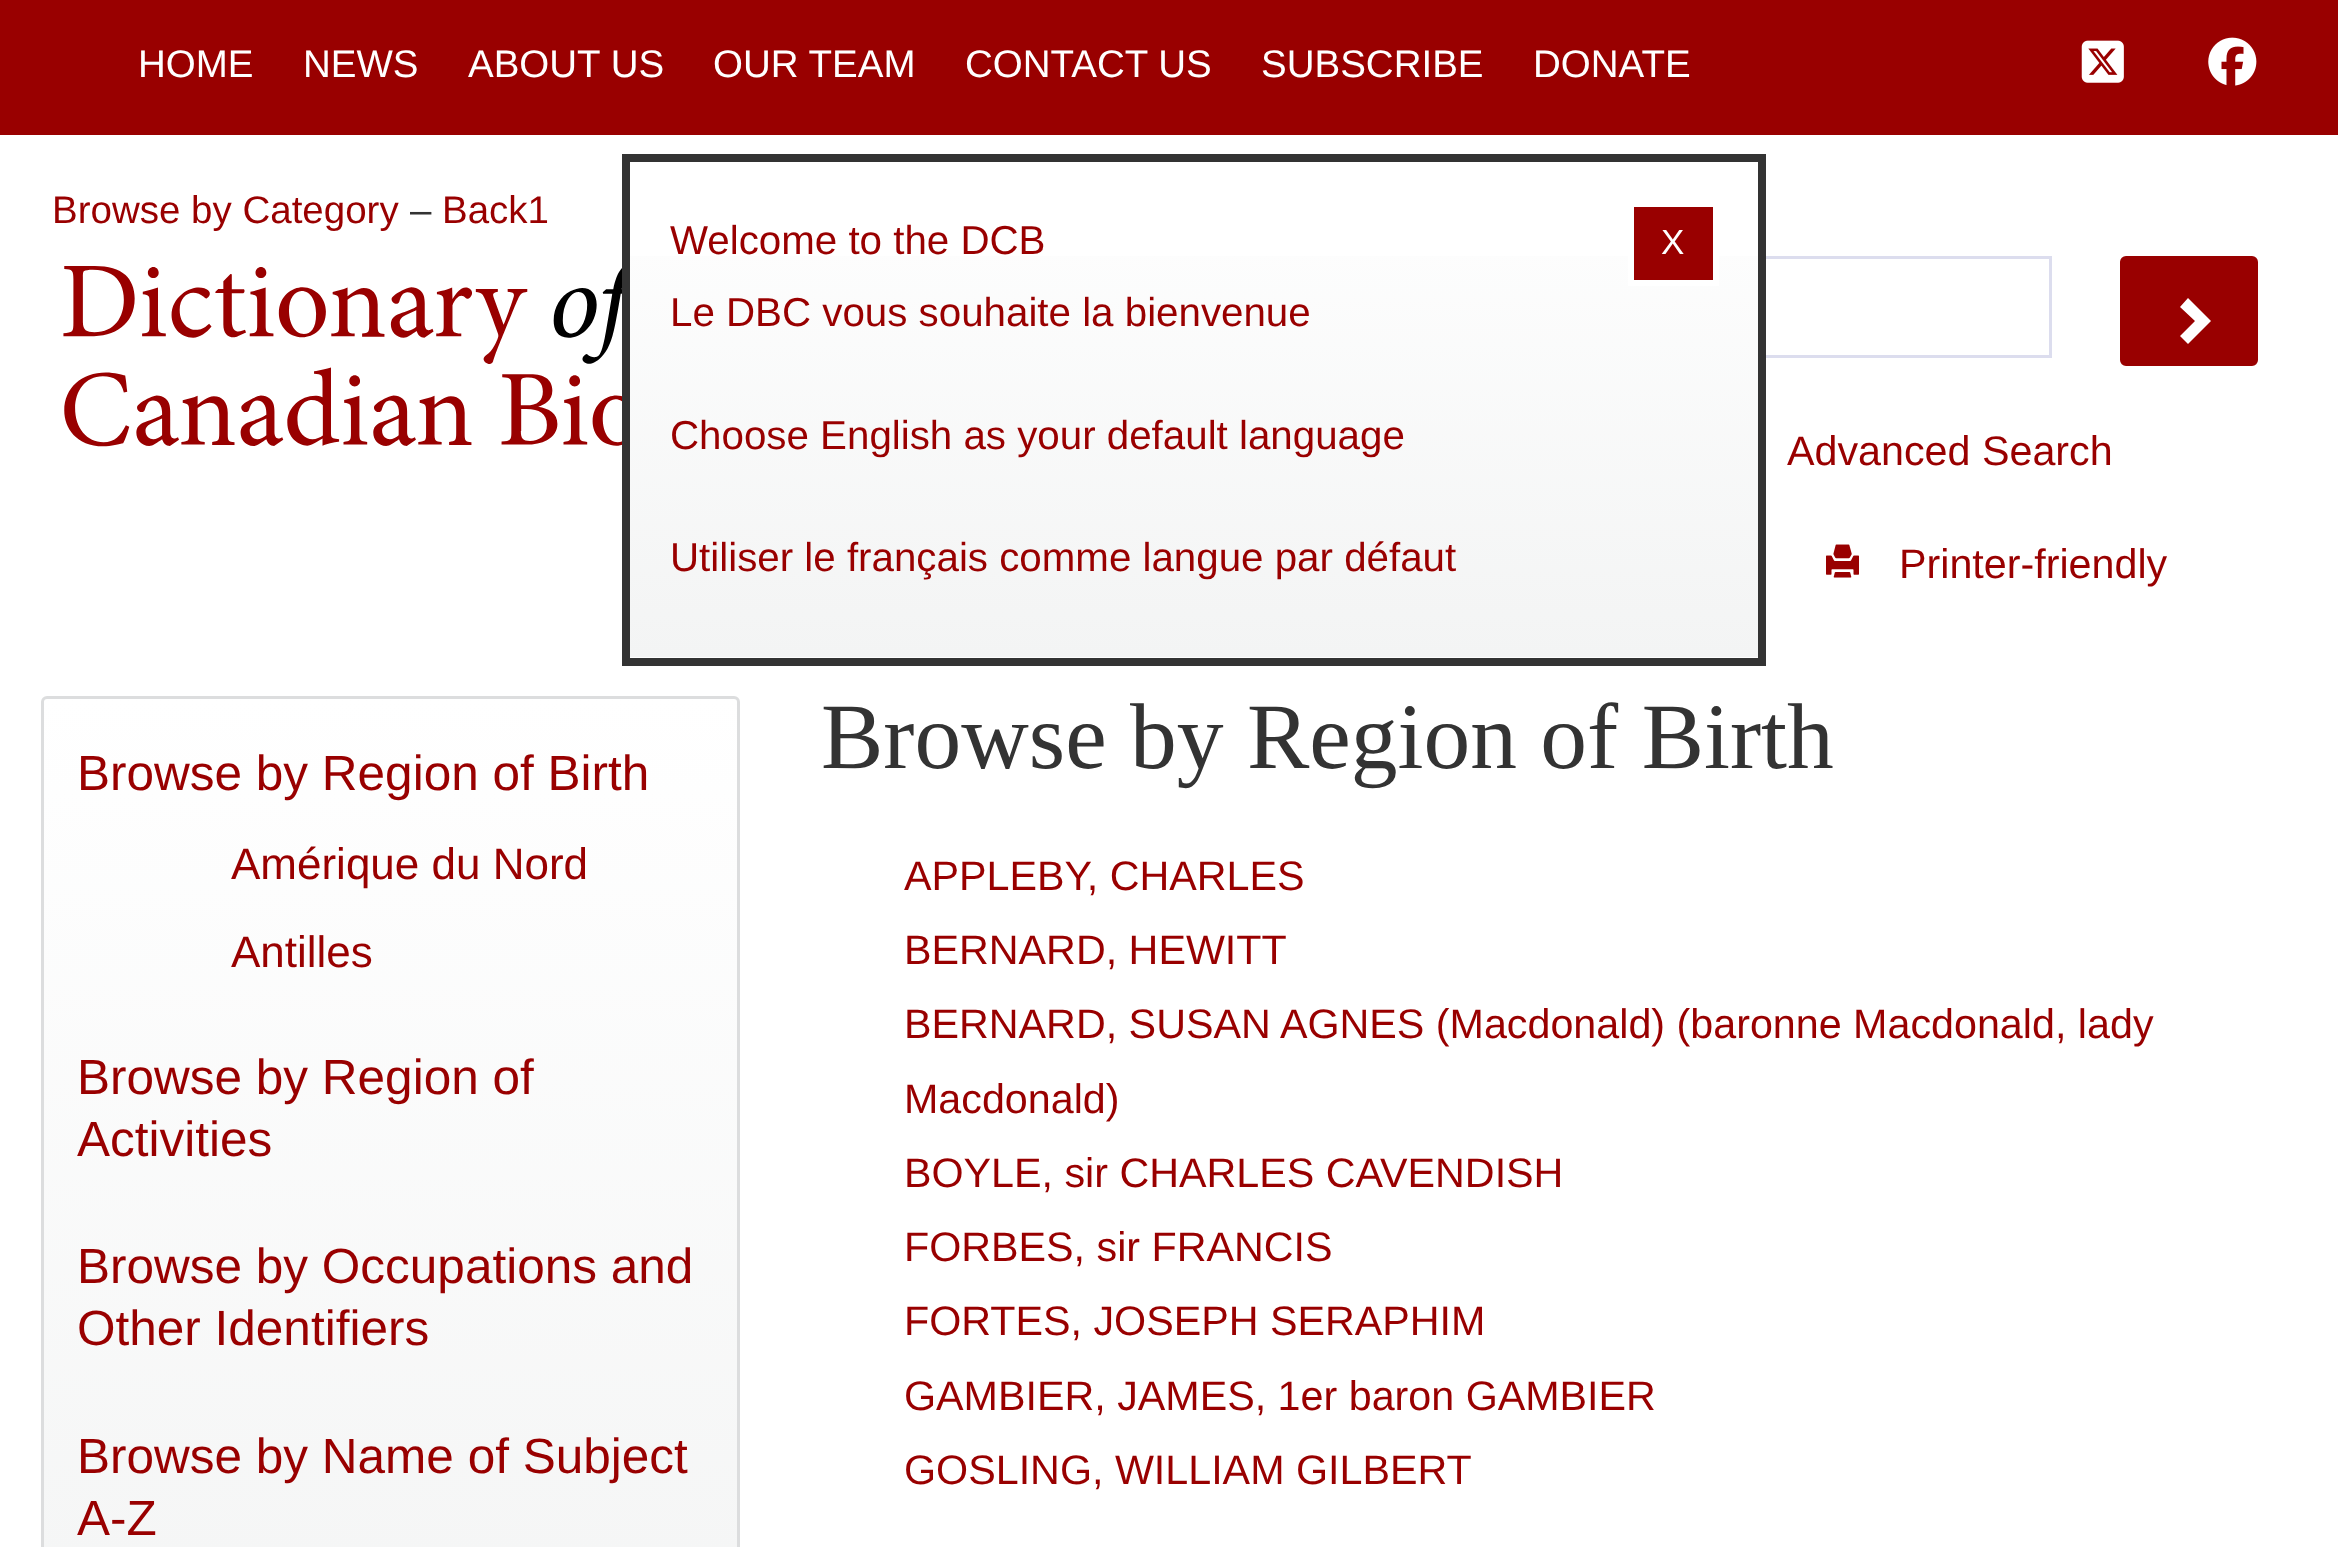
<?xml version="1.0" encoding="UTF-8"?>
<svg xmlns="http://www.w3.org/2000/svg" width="2338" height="1547">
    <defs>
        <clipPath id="clip1"><rect x="41" y="696" width="699" height="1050" rx="6"/></clipPath>
        <linearGradient id="g1" gradientUnits="userSpaceOnUse" x1="390" y1="698" x2="391" y2="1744"><stop offset="0" stop-color="#FFFFFF"/><stop offset="1" stop-color="#F3F4F4"/></linearGradient>
        <linearGradient id="g2" gradientUnits="userSpaceOnUse" x1="1194" y1="162" x2="1194" y2="657"><stop offset="0" stop-color="#FFFFFF"/><stop offset="1" stop-color="#F3F4F4"/></linearGradient>
    </defs>
    <rect width="100%" height="100%" fill="#FFFFFF"/>
    <rect x="0" y="0" width="2338" height="135" fill="#990000"/>
    <text x="138" y="77" font-family="Liberation Sans" font-size="38.5" fill="#FFFFFF">HOME</text>
    <text x="303" y="77" font-family="Liberation Sans" font-size="38.5" fill="#FFFFFF">NEWS</text>
    <text x="468" y="77" font-family="Liberation Sans" font-size="38.5" fill="#FFFFFF">ABOUT US</text>
    <text x="713" y="77" font-family="Liberation Sans" font-size="38.5" fill="#FFFFFF">OUR TEAM</text>
    <text x="965" y="77" font-family="Liberation Sans" font-size="38.5" fill="#FFFFFF">CONTACT US</text>
    <text x="1261" y="77" font-family="Liberation Sans" font-size="38.5" fill="#FFFFFF">SUBSCRIBE</text>
    <text x="1533" y="77" font-family="Liberation Sans" font-size="38.5" fill="#FFFFFF">DONATE</text>
    <image x="2081" y="40" width="43" height="43" href="img_01.png"/>
    <image x="2208" y="37" width="49" height="49" href="img_02.png"/>
    <text x="52" y="223" font-family="Liberation Sans" font-size="38.5" fill="#990000">Browse by Category</text>
    <text x="410" y="223" font-family="Liberation Sans" font-size="38.5" fill="#333333">–</text>
    <text x="442" y="223" font-family="Liberation Sans" font-size="38.5" fill="#990000">Back1</text>
    <image x="63" y="266" width="559" height="181" href="img_03.png"/>
    <rect x="1406.5" y="257.5" width="644" height="99" fill="none" stroke="#DCDDEE" stroke-width="3"/>
    <rect x="2121.5" y="257.5" width="135" height="107" rx="4.5" fill="#990000" stroke="#990000" stroke-width="3"/>
    <path d="M 2211 321 L 2188 344 L 2180 336 L 2195 321 L 2180 307 L 2188 298 Z" fill="#FFFFFF"/>
    <text x="1787" y="465" font-family="Liberation Sans" font-size="41.25" fill="#990000">Advanced Search</text>
    <image x="1826" y="544" width="33" height="34" href="img_04.png"/>
    <text x="1899" y="578" font-family="Liberation Sans" font-size="41.25" fill="#990000">Printer-friendly</text>
    <g clip-path="url(#clip1)">
        <rect x="41" y="699" width="699" height="848" fill="url(#g1)"/>
    </g>
    <rect x="42.5" y="697.5" width="696" height="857" rx="4.5" fill="none" stroke="#DCDDDE" stroke-width="3"/>
    <text x="77" y="790" font-family="Liberation Sans" font-size="49.5" fill="#990000">Browse by Region of Birth</text>
    <text x="231" y="879" font-family="Liberation Sans" font-size="44" fill="#990000">Amérique du Nord</text>
    <text x="231" y="967" font-family="Liberation Sans" font-size="44" fill="#990000">Antilles</text>
    <text font-family="Liberation Sans" font-size="49.5" fill="#990000">
        <tspan x="77" y="1094">Browse by Region of</tspan>
        <tspan x="77" y="1156">Activities</tspan>
    </text>
    <text font-family="Liberation Sans" font-size="49.5" fill="#990000">
        <tspan x="77" y="1283">Browse by Occupations and</tspan>
        <tspan x="77" y="1345">Other Identifiers</tspan>
    </text>
    <text font-family="Liberation Sans" font-size="49.5" fill="#990000">
        <tspan x="77" y="1473">Browse by Name of Subject</tspan>
        <tspan x="77" y="1535">A-Z</tspan>
    </text>
    <text x="821" y="768" font-family="Liberation Serif" font-size="93.5" fill="#333333">Browse by Region of Birth</text>
    <text font-family="Liberation Sans" font-size="41.25" fill="#990000">
        <tspan x="904" y="890">APPLEBY, CHARLES</tspan>
        <tspan x="904" y="964">BERNARD, HEWITT</tspan>
        <tspan x="904" y="1038">BERNARD, SUSAN AGNES (Macdonald) (baronne Macdonald, lady</tspan>
        <tspan x="904" y="1113">Macdonald)</tspan>
        <tspan x="904" y="1187">BOYLE, sir CHARLES CAVENDISH</tspan>
        <tspan x="904" y="1261">FORBES, sir FRANCIS</tspan>
        <tspan x="904" y="1335">FORTES, JOSEPH SERAPHIM</tspan>
        <tspan x="904" y="1410">GAMBIER, JAMES, 1er baron GAMBIER</tspan>
        <tspan x="904" y="1484">GOSLING, WILLIAM GILBERT</tspan>
    </text>
    <rect x="630" y="256" width="1128" height="401" fill="url(#g2)"/>
    <rect x="626" y="158" width="1136" height="504" fill="none" stroke="#333333" stroke-width="8"/>
    <text font-family="Liberation Sans" font-size="40.3" fill="#990000">
        <tspan x="670" y="254">Welcome to the DCB</tspan>
        <tspan x="670" y="326">Le DBC vous souhaite la bienvenue</tspan>
    </text>
    <rect x="1631" y="204" width="85" height="79" fill="#990000" stroke="#FFFFFF" stroke-width="6"/>
    <text x="1661" y="254" font-family="Liberation Sans" font-size="35" fill="#FFFFFF">X</text>
    <text x="670" y="449" font-family="Liberation Sans" font-size="40.3" fill="#990000">Choose English as your default language</text>
    <text x="670" y="571" font-family="Liberation Sans" font-size="40.3" fill="#990000">Utiliser le français comme langue par défaut</text>
</svg>
